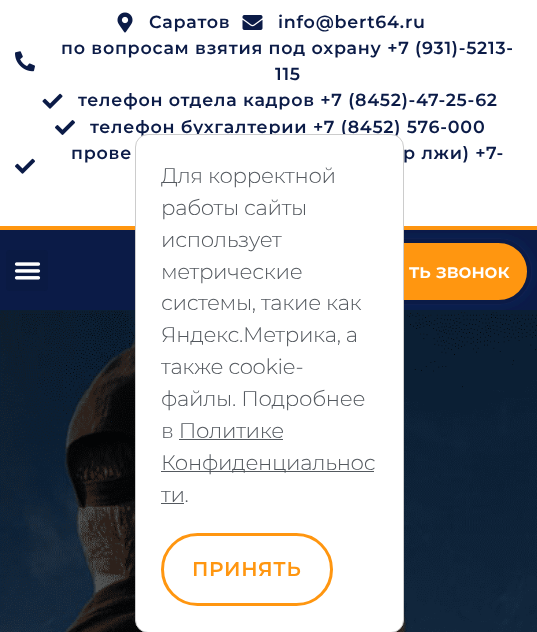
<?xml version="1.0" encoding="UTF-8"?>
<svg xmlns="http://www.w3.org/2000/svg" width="537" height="632">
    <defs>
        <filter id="blur1" x="-50%" y="-200%" width="200%" height="500%"><feGaussianBlur stdDeviation="6"/></filter>
    </defs>
    <rect width="100%" height="100%" fill="#FFFFFF"/>
    <image x="117" y="12" width="16" height="21" href="img_01.png"/>
    <text x="149" y="28" font-family="Montserrat" font-size="17.5" font-weight="600" letter-spacing="0.75" fill="#0B1B47">Саратов</text>
    <image x="242" y="15" width="21" height="15" href="img_02.png"/>
    <text x="278" y="28" font-family="Montserrat" font-size="17.5" font-weight="600" letter-spacing="0.75" fill="#0B1B47">info@bert64.ru</text>
    <image x="15" y="51" width="20" height="21" href="img_03.png"/>
    <text x="61" y="54" font-family="Montserrat" font-size="17.5" font-weight="600" letter-spacing="0.75" fill="#0B1B47">по вопросам взятия под охрану +7 (931)-5213-</text>
    <text x="275" y="80" font-family="Montserrat" font-size="17.5" font-weight="600" letter-spacing="0.75" fill="#0B1B47">115</text>
    <image x="42" y="93" width="21" height="16" href="img_04.png"/>
    <text x="78" y="106" font-family="Montserrat" font-size="17.5" font-weight="600" letter-spacing="0.75" fill="#0B1B47">телефон отдела кадров +7 (8452)-47-25-62</text>
    <image x="55" y="120" width="20" height="15" href="img_05.png"/>
    <text x="90" y="133" font-family="Montserrat" font-size="17.5" font-weight="600" letter-spacing="0.75" fill="#0B1B47">телефон бухгалтерии +7 (8452) 576-000</text>
    <text x="71" y="159" font-family="Montserrat" font-size="17.5" font-weight="600" letter-spacing="0.75" fill="#0B1B47">прове</text>
    <text x="403" y="159" font-family="Montserrat" font-size="17.5" font-weight="600" letter-spacing="0.75" fill="#0B1B47">р лжи) +7-</text>
    <image x="15" y="158" width="20" height="16" href="img_06.png"/>
    <rect x="0" y="230" width="537" height="80" fill="#0B1B47"/>
    <rect x="0" y="226" width="537" height="4" fill="#FF9610"/>
    <rect x="6" y="250" width="42" height="41" rx="4" fill="#0A1A43"/>
    <image x="14" y="262" width="27" height="18" href="img_07.png"/>
    <rect x="315" y="238" width="218" height="67" rx="33.5" fill="#1B4487" fill-opacity="0.22" filter="url(#blur1)"/>
    <rect x="318" y="241" width="211" height="61" rx="30.5" fill="#FF9610" stroke="#0B1B47" stroke-width="4"/>
    <text x="409" y="278" font-family="Montserrat" font-size="20" font-weight="600" letter-spacing="-0.3" fill="#FFFFFF">ть звонок</text>
    <image x="0" y="310" width="537" height="322" href="img_08.png"/>
    <rect x="135.5" y="134.5" width="268" height="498" rx="12.5" fill="#FFFFFF" stroke="#CCCCCC"/>
    <text font-family="Montserrat" font-size="21.25" font-weight="300" letter-spacing="-0.3" fill="#54595F">
        <tspan x="161" y="183">Для корректной</tspan>
        <tspan x="161" y="215">работы сайты</tspan>
        <tspan x="161" y="247">использует</tspan>
        <tspan x="161" y="279">метрические</tspan>
        <tspan x="161" y="310">системы, такие как</tspan>
        <tspan x="161" y="342">Яндекс.Метрика, а</tspan>
        <tspan x="161" y="374">также cookie-</tspan>
        <tspan x="161" y="406">файлы. Подробнее</tspan>
        <tspan x="161" y="438">в Политике</tspan>
    </text>
    <rect x="161" y="471" width="213" height="1" fill="#54595F"/>
    <text x="161" y="470" font-family="Montserrat" font-size="21.25" font-weight="300" letter-spacing="-0.3" fill="#54595F">Конфиденциальнос</text>
    <rect x="179" y="439" width="104" height="1" fill="#54595F"/>
    <text x="161" y="502" font-family="Montserrat" font-size="21.25" font-weight="300" letter-spacing="-0.3" fill="#54595F">ти.</text>
    <rect x="161" y="503" width="23" height="1" fill="#54595F"/>
    <rect x="162.5" y="534.5" width="169" height="70" rx="35" fill="none" stroke="#FF9610" stroke-width="3"/>
    <text x="192" y="576" font-family="Montserrat" font-size="20" font-weight="600" letter-spacing="0.75" fill="#FF9610">ПРИНЯТЬ</text>
</svg>
